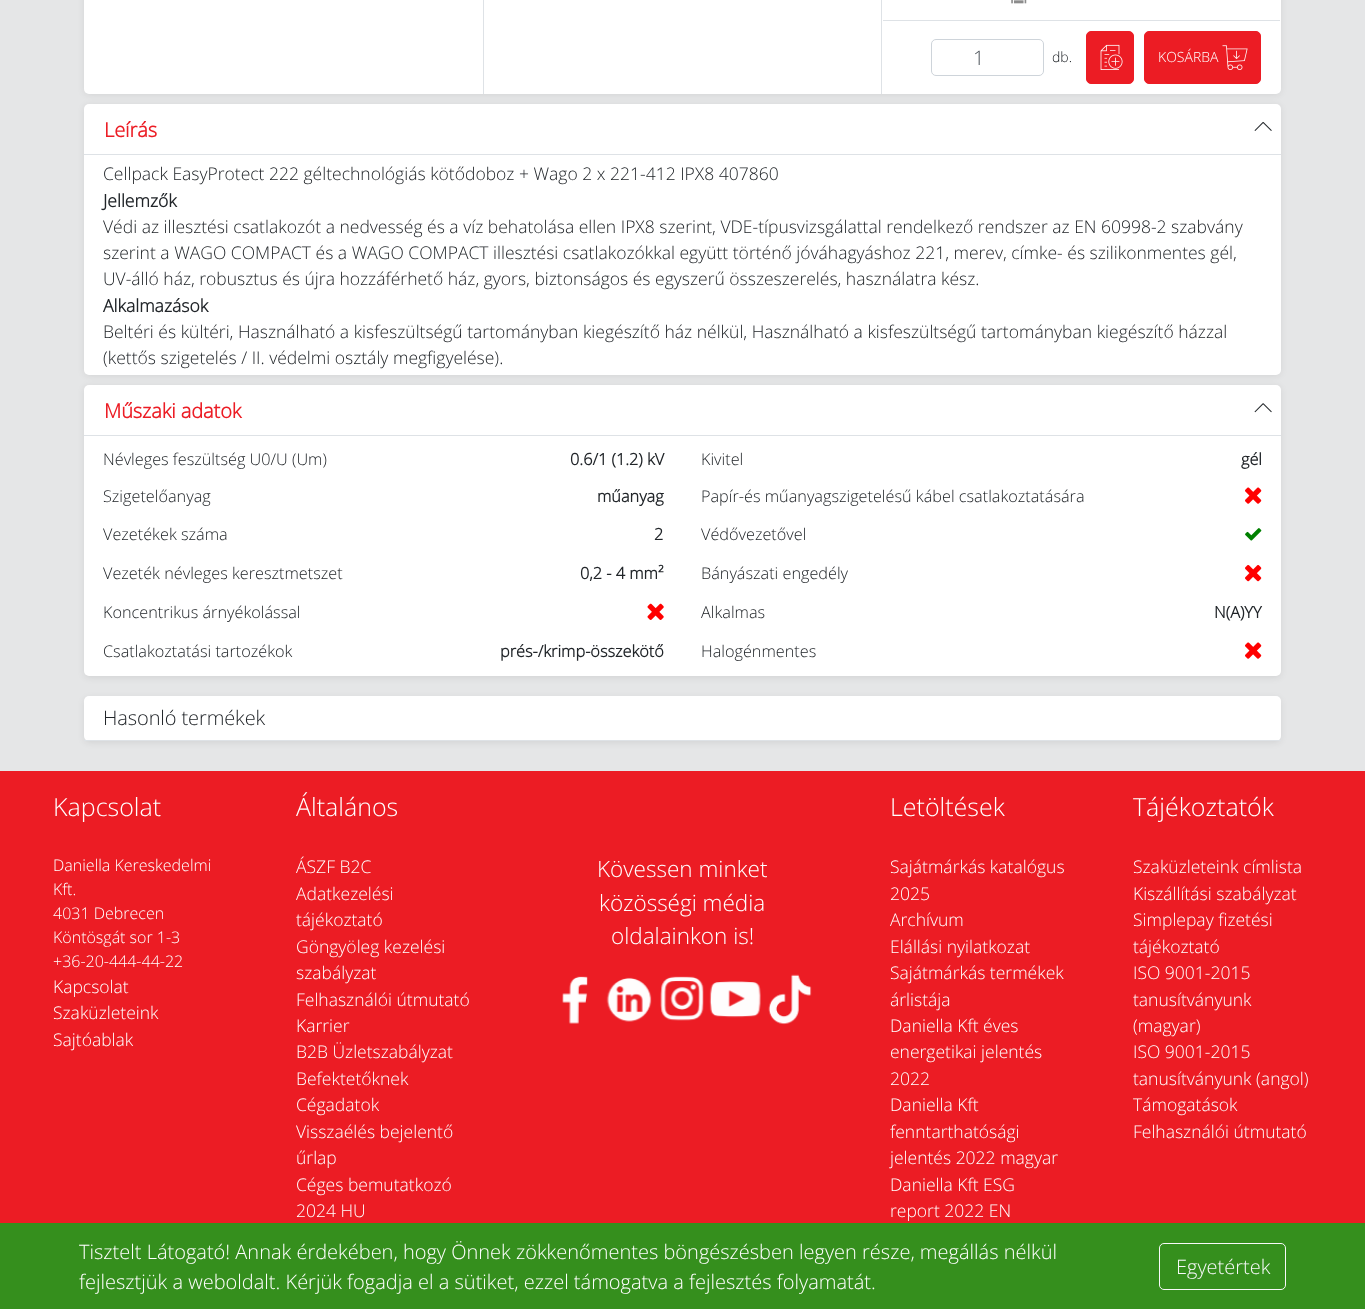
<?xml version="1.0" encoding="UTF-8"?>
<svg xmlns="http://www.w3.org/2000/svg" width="1365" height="1309">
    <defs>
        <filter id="blur1" x="-50%" y="-200%" width="200%" height="500%"><feGaussianBlur stdDeviation="3"/></filter>
    </defs>
    <rect width="100%" height="100%" fill="#E5E6E7"/>
    <rect x="84" y="-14" width="1197" height="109" rx="5" fill="#000000" fill-opacity="0.08" filter="url(#blur1)"/>
    <rect x="84" y="-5" width="1197" height="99" rx="5" fill="#FFFFFF"/>
    <rect x="483" y="0" width="1" height="94" fill="#DEE2E6"/>
    <rect x="881" y="0" width="1" height="94" fill="#DEE2E6"/>
    <rect x="883" y="20" width="397" height="1" fill="#DEE2E6"/>
    <image x="1011" y="0" width="16" height="4" href="img_01.png"/>
    <rect x="931.5" y="39.5" width="112" height="36" rx="4.5" fill="none" stroke="#CED4DA"/>
    <text x="973" y="65" font-family="Open Sans" font-size="20" font-weight="300" fill="#495057">1</text>
    <text x="1052" y="62" font-family="Open Sans" font-size="14" font-weight="300" fill="#212529">db.</text>
    <rect x="1086.5" y="31.5" width="47" height="52" rx="4.5" fill="#EC1C24" stroke="#EC1C24"/>
    <image x="1100" y="44" width="23" height="26" href="img_02.png"/>
    <rect x="1144.5" y="31.5" width="116" height="52" rx="4.5" fill="#EC1C24" stroke="#EC1C24"/>
    <text x="1158" y="62" font-family="Open Sans" font-size="14" font-weight="300" fill="#FFFFFF">KOSÁRBA</text>
    <image x="1222" y="45" width="26" height="25" href="img_03.png"/>
    <rect x="84" y="105" width="1197" height="271" rx="5" fill="#000000" fill-opacity="0.08" filter="url(#blur1)"/>
    <rect x="84" y="104" width="1197" height="271" rx="5" fill="#FFFFFF"/>
    <text x="104" y="137" font-family="Open Sans" font-size="20" font-weight="700" letter-spacing="-0.1" fill="#EC1C24">Leírás</text>
    <image x="1254" y="122" width="18" height="9" href="img_04.png"/>
    <rect x="84" y="154" width="1197" height="1" fill="#DEE2E6"/>
    <text x="103" y="180" font-family="Open Sans" font-size="17.5" font-weight="300" fill="#212529">Cellpack EasyProtect 222 géltechnológiás kötődoboz + Wago 2 x 221-412 IPX8 407860</text>
    <text x="103" y="207" font-family="Open Sans" font-size="17.5" font-weight="700" fill="#212529">Jellemzők</text>
    <text font-family="Open Sans" font-size="17.5" font-weight="300" fill="#212529">
        <tspan x="103" y="233">Védi az illesztési csatlakozót a nedvesség és a víz behatolása ellen IPX8 szerint, VDE-típusvizsgálattal rendelkező rendszer az EN 60998-2 szabvány</tspan>
        <tspan x="103" y="259">szerint a WAGO COMPACT és a WAGO COMPACT illesztési csatlakozókkal együtt történő jóváhagyáshoz 221, merev, címke- és szilikonmentes gél,</tspan>
        <tspan x="103" y="285">UV-álló ház, robusztus és újra hozzáférhető ház, gyors, biztonságos és egyszerű összeszerelés, használatra kész.</tspan>
    </text>
    <text x="103" y="312" font-family="Open Sans" font-size="17.5" font-weight="700" fill="#212529">Alkalmazások</text>
    <text font-family="Open Sans" font-size="17.5" font-weight="300" fill="#212529">
        <tspan x="103" y="338">Beltéri és kültéri, Használható a kisfeszültségű tartományban kiegészítő ház nélkül, Használható a kisfeszültségű tartományban kiegészítő házzal</tspan>
        <tspan x="103" y="364">(kettős szigetelés / II. védelmi osztály megfigyelése).</tspan>
    </text>
    <rect x="84" y="386" width="1197" height="292" rx="5" fill="#000000" fill-opacity="0.08" filter="url(#blur1)"/>
    <rect x="84" y="385" width="1197" height="291" rx="5" fill="#FFFFFF"/>
    <text x="104" y="418" font-family="Open Sans" font-size="20" font-weight="700" letter-spacing="-0.1" fill="#EC1C24">Műszaki adatok</text>
    <image x="1254" y="403" width="18" height="10" href="img_05.png"/>
    <rect x="84" y="435" width="1197" height="1" fill="#DEE2E6"/>
    <text x="103" y="465" font-family="Open Sans" font-size="16.25" font-weight="300" fill="#212529">Névleges feszültség U0/U (Um)</text>
    <text x="570" y="465" font-family="Open Sans" font-size="16.25" font-weight="700" fill="#212529">0.6/1 (1.2) kV</text>
    <text x="701" y="465" font-family="Open Sans" font-size="16.25" font-weight="300" fill="#212529">Kivitel</text>
    <text x="1241" y="465" font-family="Open Sans" font-size="16.25" font-weight="700" fill="#212529">gél</text>
    <text x="103" y="502" font-family="Open Sans" font-size="16.25" font-weight="300" fill="#212529">Szigetelőanyag</text>
    <text x="597" y="502" font-family="Open Sans" font-size="16.25" font-weight="700" fill="#212529">műanyag</text>
    <text x="701" y="502" font-family="Open Sans" font-size="16.25" font-weight="300" fill="#212529">Papír-és műanyagszigetelésű kábel csatlakoztatására</text>
    <image x="1245" y="487" width="17" height="17" href="img_06.png"/>
    <text x="103" y="540" font-family="Open Sans" font-size="16.25" font-weight="300" fill="#212529">Vezetékek száma</text>
    <text x="654" y="540" font-family="Open Sans" font-size="16.25" font-weight="700" fill="#212529">2</text>
    <text x="701" y="540" font-family="Open Sans" font-size="16.25" font-weight="300" fill="#212529">Védővezetővel</text>
    <image x="1245" y="528" width="17" height="13" href="img_07.png"/>
    <text x="103" y="579" font-family="Open Sans" font-size="16.25" font-weight="300" fill="#212529">Vezeték névleges keresztmetszet</text>
    <text x="580" y="579" font-family="Open Sans" font-size="16.25" font-weight="700" fill="#212529">0,2 - 4 mm²</text>
    <text x="701" y="579" font-family="Open Sans" font-size="16.25" font-weight="300" fill="#212529">Bányászati engedély</text>
    <image x="1245" y="565" width="17" height="17" href="img_08.png"/>
    <text x="103" y="618" font-family="Open Sans" font-size="16.25" font-weight="300" fill="#212529">Koncentrikus árnyékolással</text>
    <image x="647" y="603" width="17" height="17" href="img_09.png"/>
    <text x="701" y="618" font-family="Open Sans" font-size="16.25" font-weight="300" fill="#212529">Alkalmas</text>
    <text x="1214" y="618" font-family="Open Sans" font-size="16.25" font-weight="700" fill="#212529">N(A)YY</text>
    <text x="103" y="657" font-family="Open Sans" font-size="16.25" font-weight="300" fill="#212529">Csatlakoztatási tartozékok</text>
    <text x="500" y="657" font-family="Open Sans" font-size="16.25" font-weight="700" fill="#212529">prés-/krimp-összekötő</text>
    <text x="701" y="657" font-family="Open Sans" font-size="16.25" font-weight="300" fill="#212529">Halogénmentes</text>
    <image x="1245" y="642" width="17" height="17" href="img_06.png"/>
    <rect x="84" y="698" width="1197" height="45" rx="5" fill="#000000" fill-opacity="0.08" filter="url(#blur1)"/>
    <rect x="84" y="696" width="1197" height="45" rx="5" fill="#FFFFFF"/>
    <text x="103" y="725" font-family="Open Sans" font-size="20" font-weight="300" letter-spacing="-0.1" fill="#212529">Hasonló termékek</text>
    <rect x="84" y="740" width="1197" height="1" fill="#DEE2E6"/>
    <rect x="0" y="771" width="1365" height="452" fill="#EC1C24"/>
    <text x="53" y="816" font-family="Open Sans" font-size="25" font-weight="300" fill="#FFFFFF">Kapcsolat</text>
    <text font-family="Open Sans" font-size="16" font-weight="300" fill="#FFFFFF">
        <tspan x="53" y="871">Daniella Kereskedelmi</tspan>
        <tspan x="53" y="895">Kft.</tspan>
        <tspan x="53" y="919">4031 Debrecen</tspan>
        <tspan x="53" y="943">Köntösgát sor 1-3</tspan>
        <tspan x="53" y="967">+36-20-444-44-22</tspan>
    </text>
    <text font-family="Open Sans" font-size="17.5" font-weight="300" fill="#FFFFFF">
        <tspan x="53" y="993">Kapcsolat</tspan>
        <tspan x="53" y="1019">Szaküzleteink</tspan>
        <tspan x="53" y="1046">Sajtóablak</tspan>
    </text>
    <text x="296" y="816" font-family="Open Sans" font-size="25" font-weight="300" fill="#FFFFFF">Általános</text>
    <text font-family="Open Sans" font-size="17.5" font-weight="300" fill="#FFFFFF">
        <tspan x="296" y="873">ÁSZF B2C</tspan>
        <tspan x="296" y="900">Adatkezelési</tspan>
        <tspan x="296" y="926">tájékoztató</tspan>
        <tspan x="296" y="953">Göngyöleg kezelési</tspan>
        <tspan x="296" y="979">szabályzat</tspan>
        <tspan x="296" y="1006">Felhasználói útmutató</tspan>
        <tspan x="296" y="1032">Karrier</tspan>
        <tspan x="296" y="1058">B2B Üzletszabályzat</tspan>
        <tspan x="296" y="1085">Befektetőknek</tspan>
        <tspan x="296" y="1111">Cégadatok</tspan>
        <tspan x="296" y="1138">Visszaélés bejelentő</tspan>
        <tspan x="296" y="1164">űrlap</tspan>
        <tspan x="296" y="1191">Céges bemutatkozó</tspan>
        <tspan x="296" y="1217">2024 HU</tspan>
    </text>
    <text x="597" y="877" font-family="Open Sans" font-size="22.5" font-weight="300" fill="#FFFFFF">Kövessen minket</text>
    <text x="599" y="911" font-family="Open Sans" font-size="22.5" font-weight="300" fill="#FFFFFF">közösségi média</text>
    <text x="611" y="944" font-family="Open Sans" font-size="22.5" font-weight="300" fill="#FFFFFF">oldalainkon is!</text>
    <image x="562" y="976" width="26" height="48" href="img_10.png"/>
    <image x="606" y="977" width="46" height="45" href="img_11.png"/>
    <image x="660" y="976" width="44" height="45" href="img_12.png"/>
    <image x="709" y="981" width="52" height="37" href="img_13.png"/>
    <image x="768" y="974" width="44" height="51" href="img_14.png"/>
    <text x="890" y="816" font-family="Open Sans" font-size="25" font-weight="300" fill="#FFFFFF">Letöltések</text>
    <text font-family="Open Sans" font-size="17.5" font-weight="300" fill="#FFFFFF">
        <tspan x="890" y="873">Sajátmárkás katalógus</tspan>
        <tspan x="890" y="900">2025</tspan>
        <tspan x="890" y="926">Archívum</tspan>
        <tspan x="890" y="953">Elállási nyilatkozat</tspan>
        <tspan x="890" y="979">Sajátmárkás termékek</tspan>
        <tspan x="890" y="1006">árlistája</tspan>
        <tspan x="890" y="1032">Daniella Kft éves</tspan>
        <tspan x="890" y="1058">energetikai jelentés</tspan>
        <tspan x="890" y="1085">2022</tspan>
        <tspan x="890" y="1111">Daniella Kft</tspan>
        <tspan x="890" y="1138">fenntarthatósági</tspan>
        <tspan x="890" y="1164">jelentés 2022 magyar</tspan>
        <tspan x="890" y="1191">Daniella Kft ESG</tspan>
        <tspan x="890" y="1217">report 2022 EN</tspan>
    </text>
    <text x="1133" y="816" font-family="Open Sans" font-size="25" font-weight="300" fill="#FFFFFF">Tájékoztatók</text>
    <text font-family="Open Sans" font-size="17.5" font-weight="300" fill="#FFFFFF">
        <tspan x="1133" y="873">Szaküzleteink címlista</tspan>
        <tspan x="1133" y="900">Kiszállítási szabályzat</tspan>
        <tspan x="1133" y="926">Simplepay fizetési</tspan>
        <tspan x="1133" y="953">tájékoztató</tspan>
        <tspan x="1133" y="979">ISO 9001-2015</tspan>
        <tspan x="1133" y="1006">tanusítványunk</tspan>
        <tspan x="1133" y="1032">(magyar)</tspan>
        <tspan x="1133" y="1058">ISO 9001-2015</tspan>
        <tspan x="1133" y="1085">tanusítványunk (angol)</tspan>
        <tspan x="1133" y="1111">Támogatások</tspan>
        <tspan x="1133" y="1138">Felhasználói útmutató</tspan>
    </text>
    <rect x="0" y="1223" width="1365" height="86" fill="#358F1D"/>
    <text font-family="Open Sans" font-size="20" font-weight="300" fill="#FFFFFF">
        <tspan x="79" y="1259">Tisztelt Látogató! Annak érdekében, hogy Önnek zökkenőmentes böngészésben legyen része, megállás nélkül</tspan>
        <tspan x="79" y="1289">fejlesztjük a weboldalt. Kérjük fogadja el a sütiket, ezzel támogatva a fejlesztés folyamatát.</tspan>
    </text>
    <rect x="1159.5" y="1243.5" width="126" height="46" rx="4.5" fill="none" stroke="#F8F9FA"/>
    <text x="1176" y="1274" font-family="Open Sans" font-size="20" font-weight="300" fill="#F8F9FA">Egyetértek</text>
</svg>
